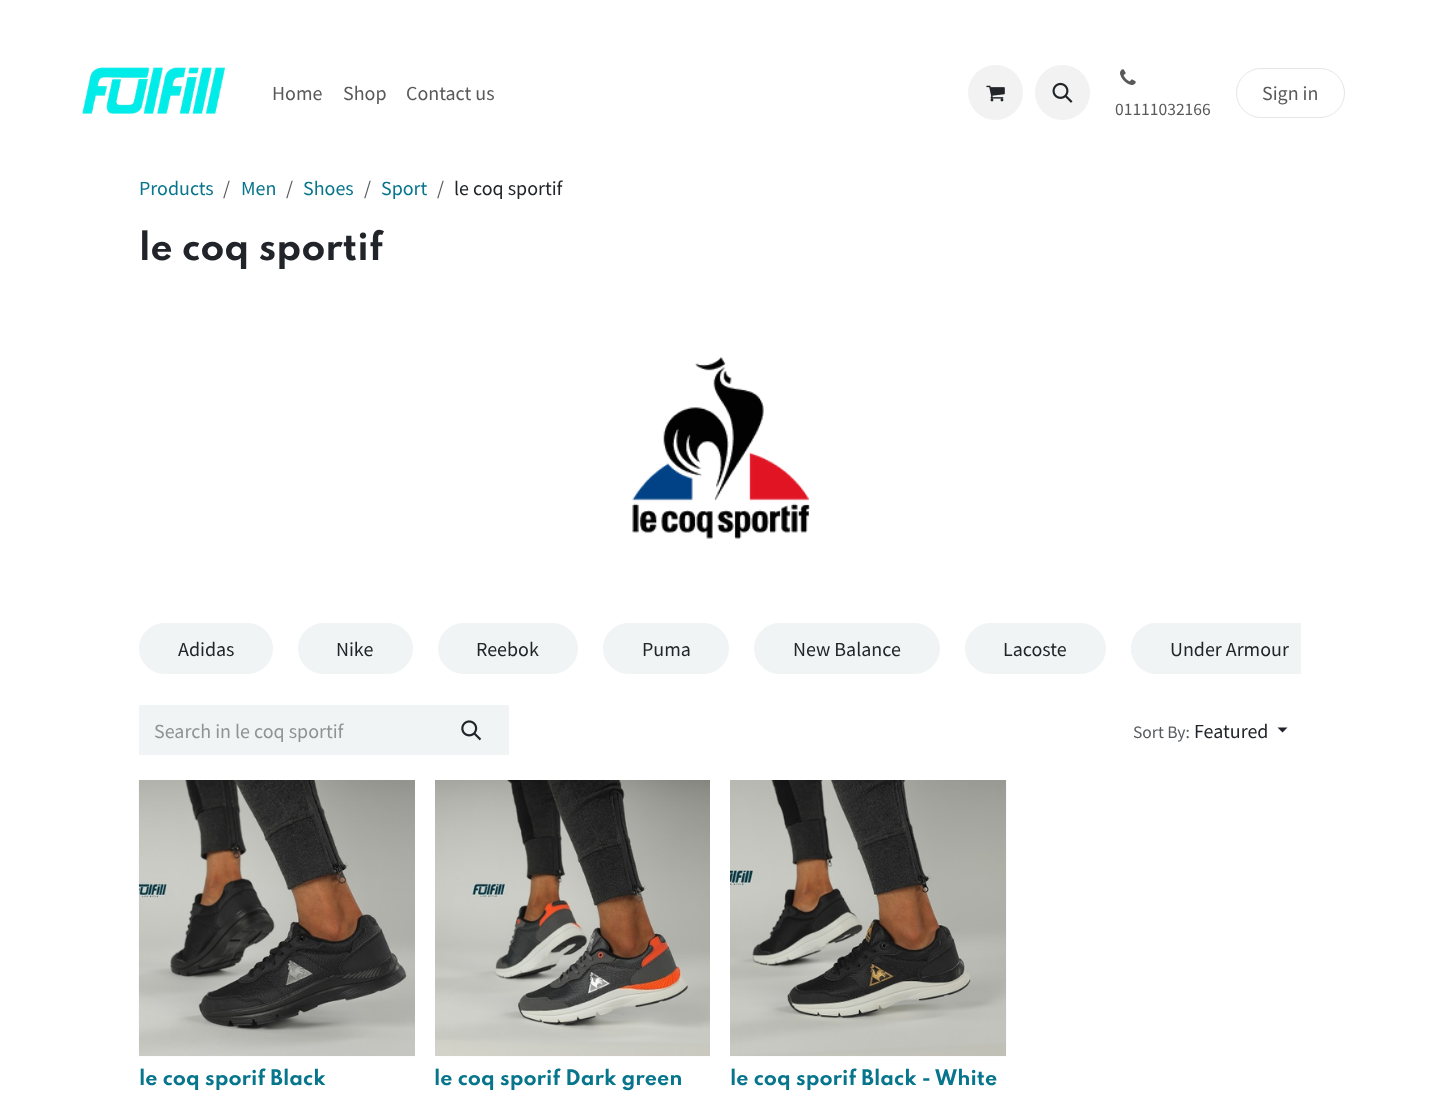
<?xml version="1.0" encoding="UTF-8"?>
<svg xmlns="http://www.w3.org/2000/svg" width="1440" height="1107">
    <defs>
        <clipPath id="clip1"><rect x="139" y="623" width="1162" height="57"/></clipPath>
    </defs>
    <rect width="100%" height="100%" fill="#FFFFFF"/>
    <image x="82" y="67" width="143" height="47" href="img_01.png"/>
    <text x="272" y="100" font-family="Source Sans Pro" font-size="20" fill="#595959">Home</text>
    <text x="343" y="100" font-family="Source Sans Pro" font-size="20" fill="#595959">Shop</text>
    <text x="406" y="100" font-family="Source Sans Pro" font-size="20" fill="#595959">Contact us</text>
    <circle cx="995.5" cy="92.5" r="27.5" fill="#F2F2F2"/>
    <image x="986" y="85" width="19" height="17" href="img_02.png"/>
    <circle cx="1062.5" cy="92.5" r="27.5" fill="#F2F2F2"/>
    <image x="1052" y="82" width="21" height="21" href="img_03.png"/>
    <rect x="1236.5" y="68.5" width="108" height="49" rx="24.5" fill="none" stroke="#E6E6E6"/>
    <text x="1262" y="100" font-family="Source Sans Pro" font-size="20" fill="#595959">Sign in</text>
    <image x="1120" y="69" width="16" height="16" href="img_04.png"/>
    <text x="1115" y="115" font-family="Source Sans Pro" font-size="17.5" fill="#595959">01111032166</text>
    <text x="139" y="195" font-family="Source Sans Pro" font-size="20" fill="#07758B">Products</text>
    <text x="223" y="195" font-family="Source Sans Pro" font-size="20" fill="#595C5F">/</text>
    <text x="241" y="195" font-family="Source Sans Pro" font-size="20" fill="#07758B">Men</text>
    <text x="286" y="195" font-family="Source Sans Pro" font-size="20" fill="#595C5F">/</text>
    <text x="303" y="195" font-family="Source Sans Pro" font-size="20" fill="#07758B">Shoes</text>
    <text x="364" y="195" font-family="Source Sans Pro" font-size="20" fill="#595C5F">/</text>
    <text x="381" y="195" font-family="Source Sans Pro" font-size="20" fill="#07758B">Sport</text>
    <text x="437" y="195" font-family="Source Sans Pro" font-size="20" fill="#595C5F">/</text>
    <text x="454" y="195" font-family="Source Sans Pro" font-size="20" fill="#212529">le coq sportif</text>
    <text x="139" y="260" font-family="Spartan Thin" font-size="34.5" font-weight="700" fill="#212529">le coq sportif</text>
    <image x="632" y="357" width="178" height="182" href="img_05.png"/>
    <rect x="139.5" y="623.5" width="133" height="50" rx="25" fill="#F0F4F5" stroke="#F0F4F5"/>
    <text x="178" y="656" font-family="Source Sans Pro" font-size="20" fill="#212529">Adidas</text>
    <rect x="298.5" y="623.5" width="114" height="50" rx="25" fill="#F0F4F5" stroke="#F0F4F5"/>
    <text x="336" y="656" font-family="Source Sans Pro" font-size="20" fill="#212529">Nike</text>
    <rect x="438.5" y="623.5" width="139" height="50" rx="25" fill="#F0F4F5" stroke="#F0F4F5"/>
    <text x="476" y="656" font-family="Source Sans Pro" font-size="20" fill="#212529">Reebok</text>
    <rect x="603.5" y="623.5" width="125" height="50" rx="25" fill="#F0F4F5" stroke="#F0F4F5"/>
    <text x="642" y="656" font-family="Source Sans Pro" font-size="20" fill="#212529">Puma</text>
    <rect x="754.5" y="623.5" width="185" height="50" rx="25" fill="#F0F4F5" stroke="#F0F4F5"/>
    <text x="793" y="656" font-family="Source Sans Pro" font-size="20" fill="#212529">New Balance</text>
    <rect x="965.5" y="623.5" width="140" height="50" rx="25" fill="#F0F4F5" stroke="#F0F4F5"/>
    <text x="1003" y="656" font-family="Source Sans Pro" font-size="20" fill="#212529">Lacoste</text>
    <path d="M 1156.5 623 H 1301 V 674 H 1156.5 C 1142.5 674 1131 662.5 1131 648.5 C 1131 634.5 1142.5 623 1156.5 623 Z" fill="#F0F4F5"/>
    <g clip-path="url(#clip1)">
        <rect x="1131.5" y="623.5" width="196" height="50" rx="25" fill="none" stroke="#F0F4F5"/>
    </g>
    <text x="1170" y="656" font-family="Source Sans Pro" font-size="20" fill="#212529">Under Armour</text>
    <rect x="139" y="705" width="370" height="50" fill="#F0F4F5"/>
    <text x="154" y="738" font-family="Source Sans Pro" font-size="20" fill="#909294">Search in le coq sportif</text>
    <image x="461" y="720" width="21" height="21" href="img_06.png"/>
    <text x="1133" y="738" font-family="Source Sans Pro" font-size="17.5" fill="#595C5F">Sort By:</text>
    <text x="1194" y="738" font-family="Source Sans Pro" font-size="20" fill="#212529">Featured</text>
    <path d="M 1277.5 727.5 H 1287.5 L 1282.5 732.5 Z" fill="#212529"/>
    <image x="138" y="780" width="277" height="277" href="img_07.png"/>
    <text x="139" y="1085" font-family="Spartan Thin" font-size="19" font-weight="700" fill="#07758B">le coq sporif Black</text>
    <image x="435" y="780" width="275" height="277" href="img_08.png"/>
    <text x="434" y="1085" font-family="Spartan Thin" font-size="19" font-weight="700" fill="#07758B">le coq sporif Dark green</text>
    <image x="730" y="780" width="277" height="277" href="img_09.png"/>
    <text x="730" y="1085" font-family="Spartan Thin" font-size="19" font-weight="700" fill="#07758B">le coq sporif Black - White</text>
</svg>
